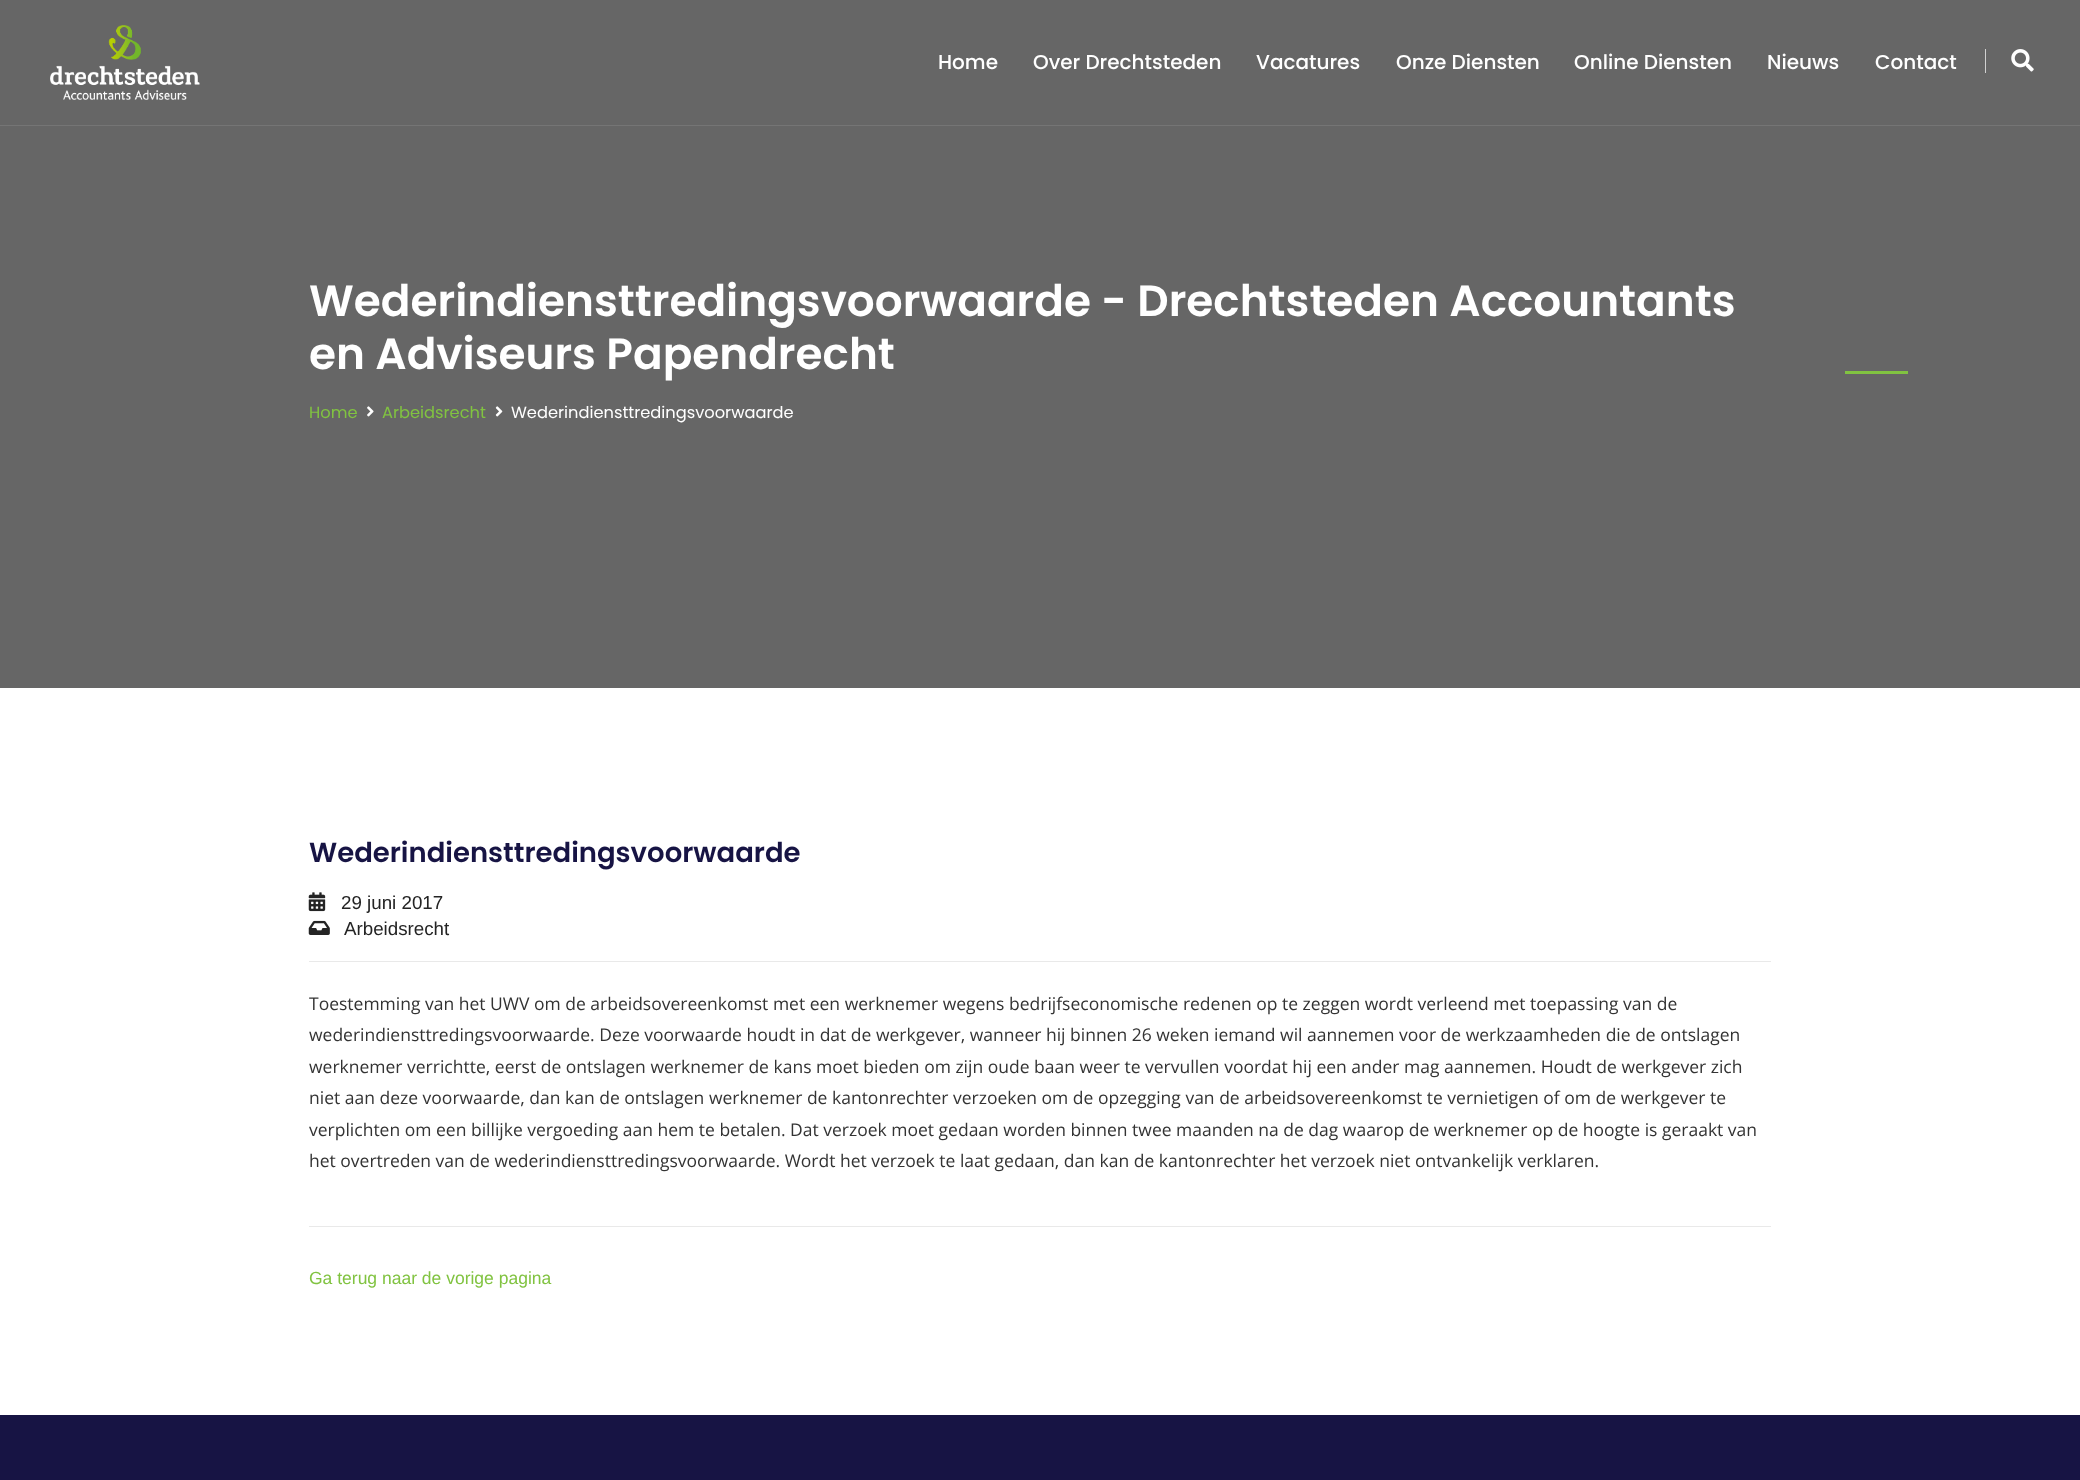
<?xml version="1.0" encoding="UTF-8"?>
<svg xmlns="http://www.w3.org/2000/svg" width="2080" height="1480">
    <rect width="100%" height="100%" fill="#FFFFFF"/>
    <rect x="0" y="0" width="2080" height="688" fill="#666666"/>
    <rect x="0" y="125" width="2080" height="1" fill="#757575"/>
    <image x="50" y="25" width="150" height="75" href="img_01.png"/>
    <text x="938" y="69" font-family="Poppins" font-size="20" font-weight="500" fill="#FFFFFF">Home</text>
    <text x="1033" y="69" font-family="Poppins" font-size="20" font-weight="500" fill="#FFFFFF">Over Drechtsteden</text>
    <text x="1256" y="69" font-family="Poppins" font-size="20" font-weight="500" fill="#FFFFFF">Vacatures</text>
    <text x="1396" y="69" font-family="Poppins" font-size="20" font-weight="500" fill="#FFFFFF">Onze Diensten</text>
    <text x="1574" y="69" font-family="Poppins" font-size="20" font-weight="500" fill="#FFFFFF">Online Diensten</text>
    <text x="1767" y="69" font-family="Poppins" font-size="20" font-weight="500" fill="#FFFFFF">Nieuws</text>
    <text x="1875" y="69" font-family="Poppins" font-size="20" font-weight="500" fill="#FFFFFF">Contact</text>
    <rect x="1985" y="49" width="1" height="24" fill="#D1D1D1"/>
    <image x="2011" y="49" width="23" height="23" href="img_02.png"/>
    <text font-family="Poppins" font-size="43.75" font-weight="600" fill="#FFFFFF">
        <tspan x="309" y="316">Wederindiensttredingsvoorwaarde - Drechtsteden Accountants</tspan>
        <tspan x="309" y="369">en Adviseurs Papendrecht</tspan>
    </text>
    <rect x="1845" y="371" width="63" height="3" fill="#81C341"/>
    <text x="309" y="418" font-family="Poppins" font-size="16.25" fill="#81C341">Home</text>
    <image x="367" y="406" width="7" height="11" href="img_03.png"/>
    <text x="382" y="418" font-family="Poppins" font-size="16.25" fill="#81C341">Arbeidsrecht</text>
    <image x="495" y="406" width="8" height="11" href="img_04.png"/>
    <text x="511" y="418" font-family="Poppins" font-size="16.25" fill="#FFFFFF">Wederindiensttredingsvoorwaarde</text>
    <rect x="309" y="1226" width="1462" height="1" fill="#E9E9E9"/>
    <text x="309" y="862" font-family="Poppins" font-size="27.5" font-weight="600" fill="#171444">Wederindiensttredingsvoorwaarde</text>
    <image x="308" y="892" width="18" height="20" href="img_05.png"/>
    <text x="341" y="909" font-family="Liberation Sans" font-size="18.75" fill="#242424">29 juni 2017</text>
    <rect x="309" y="961" width="1462" height="1" fill="#E9E9E9"/>
    <image x="308" y="920" width="22" height="15" href="img_06.png"/>
    <text x="344" y="935" font-family="Liberation Sans" font-size="18.75" fill="#242424">Arbeidsrecht</text>
    <text font-family="Open Sans" font-size="17.5" fill="#333333">
        <tspan x="309" y="1010">Toestemming van het UWV om de arbeidsovereenkomst met een werknemer wegens bedrijfseconomische redenen op te zeggen wordt verleend met toepassing van de</tspan>
        <tspan x="309" y="1041">wederindiensttredingsvoorwaarde. Deze voorwaarde houdt in dat de werkgever, wanneer hij binnen 26 weken iemand wil aannemen voor de werkzaamheden die de ontslagen</tspan>
        <tspan x="309" y="1073">werknemer verrichtte, eerst de ontslagen werknemer de kans moet bieden om zijn oude baan weer te vervullen voordat hij een ander mag aannemen. Houdt de werkgever zich</tspan>
        <tspan x="309" y="1104">niet aan deze voorwaarde, dan kan de ontslagen werknemer de kantonrechter verzoeken om de opzegging van de arbeidsovereenkomst te vernietigen of om de werkgever te</tspan>
        <tspan x="309" y="1136">verplichten om een billijke vergoeding aan hem te betalen. Dat verzoek moet gedaan worden binnen twee maanden na de dag waarop de werknemer op de hoogte is geraakt van</tspan>
        <tspan x="309" y="1167">het overtreden van de wederindiensttredingsvoorwaarde. Wordt het verzoek te laat gedaan, dan kan de kantonrechter het verzoek niet ontvankelijk verklaren.</tspan>
    </text>
    <text x="309" y="1284" font-family="Liberation Sans" font-size="17.5" fill="#81C341">Ga terug naar de vorige pagina</text>
    <rect x="0" y="1415" width="2080" height="65" fill="#171444"/>
</svg>
